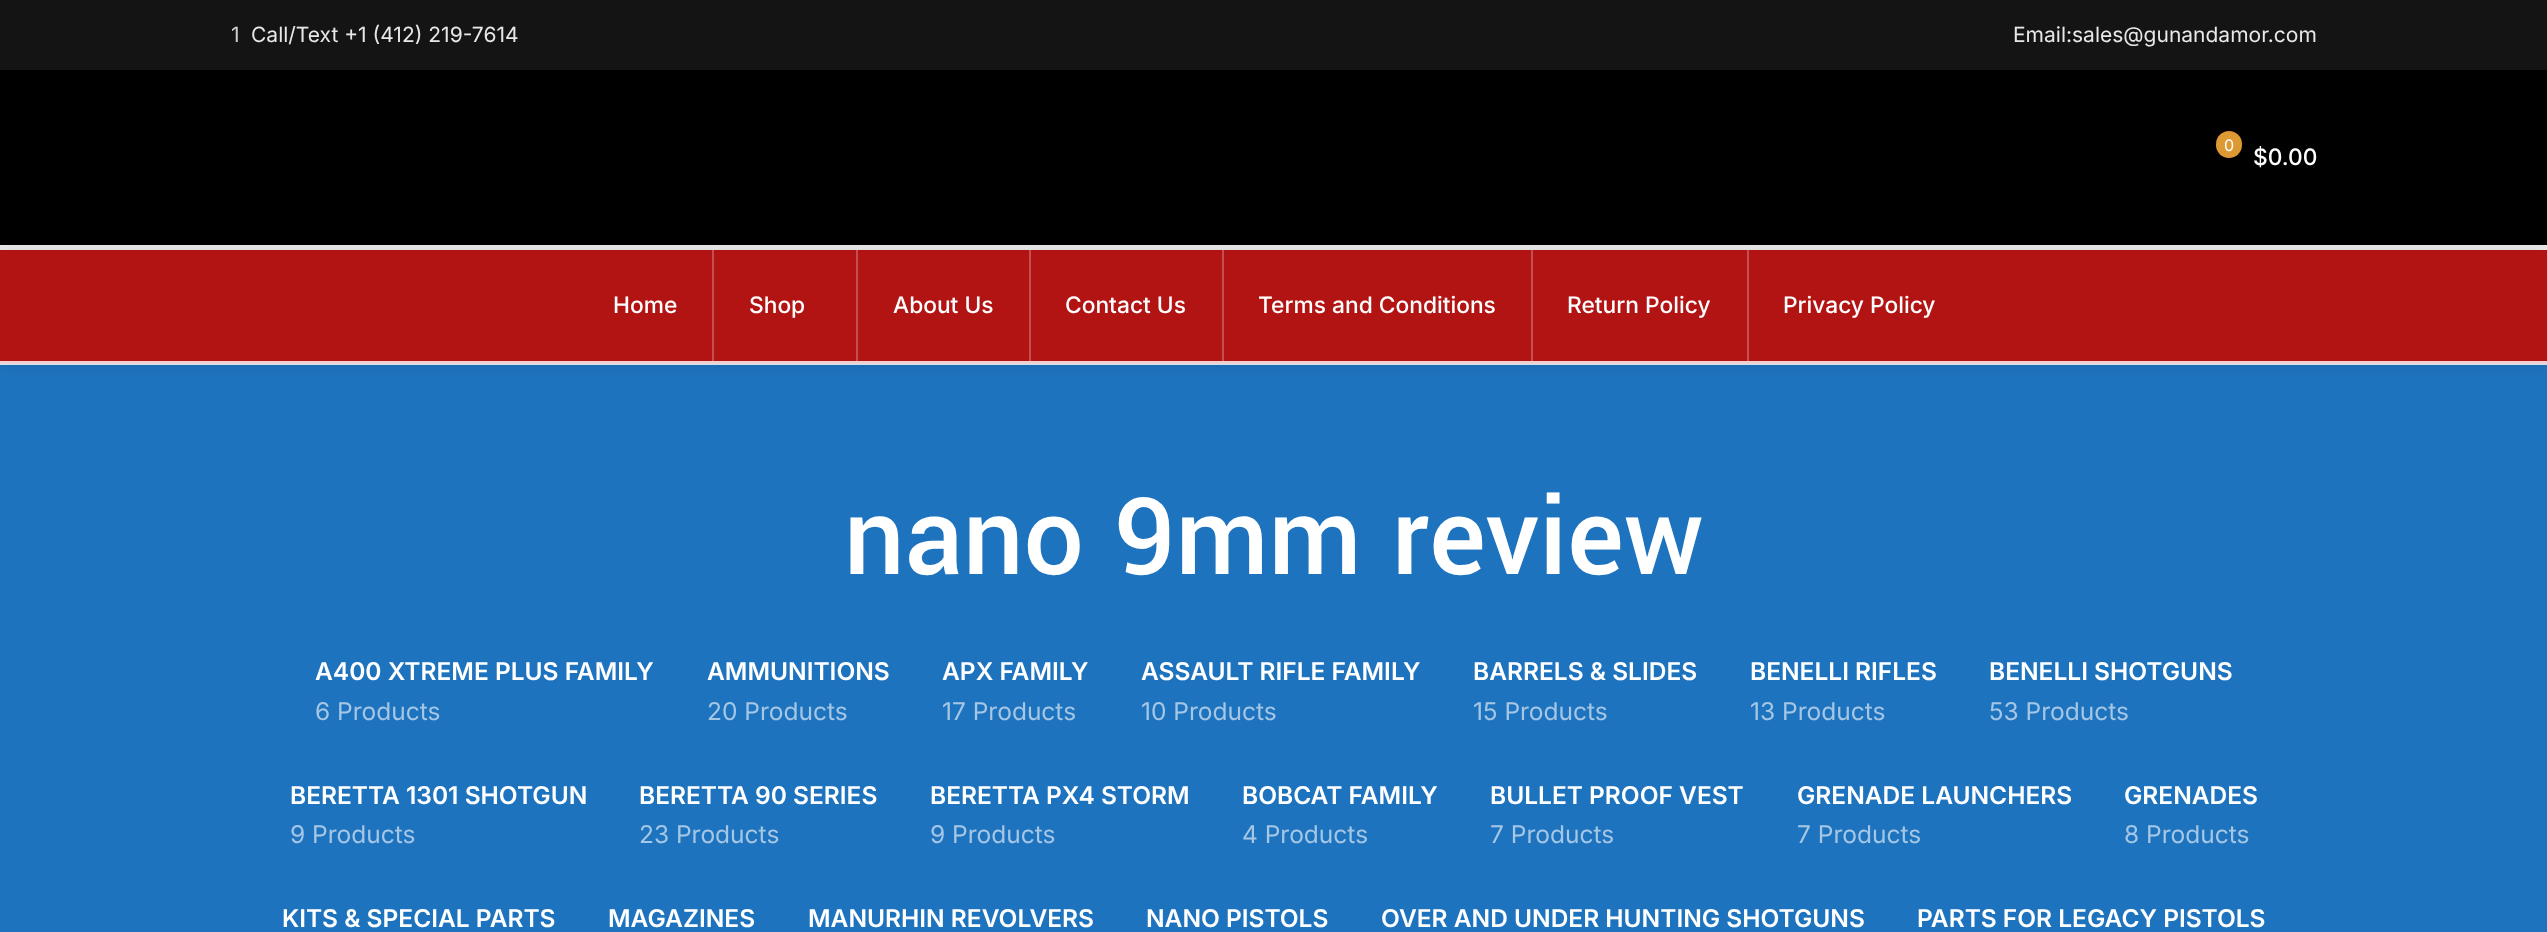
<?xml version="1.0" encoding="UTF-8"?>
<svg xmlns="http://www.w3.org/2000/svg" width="2547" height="932">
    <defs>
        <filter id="blur1" x="-50%" y="-200%" width="200%" height="500%"><feGaussianBlur stdDeviation="7"/></filter>
    </defs>
    <rect width="100%" height="100%" fill="#1E73BE"/>
    <rect x="0" y="0" width="2547" height="70" fill="#141415"/>
    <text x="231" y="42" font-family="Inter" font-size="21" fill="#D0D0D0">1</text>
    <text x="251" y="42" font-family="Inter" font-size="21" fill="#E8E8E8">Call/Text +1 (412) 219-7614</text>
    <text x="2013" y="42" font-family="Inter" font-size="21" fill="#E8E8E8">Email:sales@gunandamor.com</text>
    <rect x="0" y="70" width="2547" height="175" fill="#000000"/>
    <rect x="0" y="245" width="2547" height="5" fill="#E8E8E8"/>
    <rect x="2216" y="131" width="26" height="27" rx="13" fill="#DD9933"/>
    <text x="2224" y="151" font-family="Inter" font-size="16" fill="#FFFFFF">0</text>
    <text x="2253" y="165" font-family="Inter" font-size="22.75" font-weight="500" fill="#FFFFFF">$0.00</text>
    <rect x="0" y="252" width="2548" height="114" fill="#000000" fill-opacity="0.1" filter="url(#blur1)"/>
    <rect x="0" y="250" width="2547" height="114" fill="#B21414"/>
    <rect x="0" y="361" width="2547" height="4" fill="#FFFFFF" fill-opacity="0.8"/>
    <text x="613" y="313" font-family="Inter" font-size="22.75" font-weight="500" fill="#FFFFFF">Home</text>
    <rect x="712" y="250" width="2" height="111" fill="#C54F4F"/>
    <text x="749" y="313" font-family="Inter" font-size="22.75" font-weight="500" fill="#FFFFFF">Shop</text>
    <rect x="856" y="250" width="2" height="111" fill="#C54F4F"/>
    <text x="893" y="313" font-family="Inter" font-size="22.75" font-weight="500" fill="#FFFFFF">About Us</text>
    <rect x="1029" y="250" width="2" height="111" fill="#C54F4F"/>
    <text x="1065" y="313" font-family="Inter" font-size="22.75" font-weight="500" fill="#FFFFFF">Contact Us</text>
    <rect x="1222" y="250" width="2" height="111" fill="#C54F4F"/>
    <text x="1258" y="313" font-family="Inter" font-size="22.75" font-weight="500" fill="#FFFFFF">Terms and Conditions</text>
    <rect x="1531" y="250" width="2" height="111" fill="#C54F4F"/>
    <text x="1567" y="313" font-family="Inter" font-size="22.75" font-weight="500" fill="#FFFFFF">Return Policy</text>
    <rect x="1747" y="250" width="2" height="111" fill="#C54F4F"/>
    <text x="1783" y="313" font-family="Inter" font-size="22.75" font-weight="500" fill="#FFFFFF">Privacy Policy</text>
    <text x="844" y="574" font-family="Yantramanav" font-size="119" font-weight="500" fill="#FFFFFF">nano 9mm review</text>
    <text x="315" y="680" font-family="Inter" font-size="24.5" font-weight="600" fill="#FFFFFF">A400 XTREME PLUS FAMILY</text>
    <text x="315" y="720" font-family="Inter" font-size="24.5" fill="#A5C7E5">6 Products</text>
    <text x="707" y="680" font-family="Inter" font-size="24.5" font-weight="600" fill="#FFFFFF">AMMUNITIONS</text>
    <text x="707" y="720" font-family="Inter" font-size="24.5" fill="#A5C7E5">20 Products</text>
    <text x="942" y="680" font-family="Inter" font-size="24.5" font-weight="600" fill="#FFFFFF">APX FAMILY</text>
    <text x="942" y="720" font-family="Inter" font-size="24.5" fill="#A5C7E5">17 Products</text>
    <text x="1141" y="680" font-family="Inter" font-size="24.5" font-weight="600" fill="#FFFFFF">ASSAULT RIFLE FAMILY</text>
    <text x="1141" y="720" font-family="Inter" font-size="24.5" fill="#A5C7E5">10 Products</text>
    <text x="1473" y="680" font-family="Inter" font-size="24.5" font-weight="600" fill="#FFFFFF">BARRELS &amp; SLIDES</text>
    <text x="1473" y="720" font-family="Inter" font-size="24.5" fill="#A5C7E5">15 Products</text>
    <text x="1750" y="680" font-family="Inter" font-size="24.5" font-weight="600" fill="#FFFFFF">BENELLI RIFLES</text>
    <text x="1750" y="720" font-family="Inter" font-size="24.5" fill="#A5C7E5">13 Products</text>
    <text x="1989" y="680" font-family="Inter" font-size="24.5" font-weight="600" fill="#FFFFFF">BENELLI SHOTGUNS</text>
    <text x="1989" y="720" font-family="Inter" font-size="24.5" fill="#A5C7E5">53 Products</text>
    <text x="290" y="804" font-family="Inter" font-size="24.5" font-weight="600" fill="#FFFFFF">BERETTA 1301 SHOTGUN</text>
    <text x="290" y="843" font-family="Inter" font-size="24.5" fill="#A5C7E5">9 Products</text>
    <text x="639" y="804" font-family="Inter" font-size="24.5" font-weight="600" fill="#FFFFFF">BERETTA 90 SERIES</text>
    <text x="639" y="843" font-family="Inter" font-size="24.5" fill="#A5C7E5">23 Products</text>
    <text x="930" y="804" font-family="Inter" font-size="24.5" font-weight="600" fill="#FFFFFF">BERETTA PX4 STORM</text>
    <text x="930" y="843" font-family="Inter" font-size="24.5" fill="#A5C7E5">9 Products</text>
    <text x="1242" y="804" font-family="Inter" font-size="24.5" font-weight="600" fill="#FFFFFF">BOBCAT FAMILY</text>
    <text x="1242" y="843" font-family="Inter" font-size="24.5" fill="#A5C7E5">4 Products</text>
    <text x="1490" y="804" font-family="Inter" font-size="24.5" font-weight="600" fill="#FFFFFF">BULLET PROOF VEST</text>
    <text x="1490" y="843" font-family="Inter" font-size="24.5" fill="#A5C7E5">7 Products</text>
    <text x="1797" y="804" font-family="Inter" font-size="24.5" font-weight="600" fill="#FFFFFF">GRENADE LAUNCHERS</text>
    <text x="1797" y="843" font-family="Inter" font-size="24.5" fill="#A5C7E5">7 Products</text>
    <text x="2124" y="804" font-family="Inter" font-size="24.5" font-weight="600" fill="#FFFFFF">GRENADES</text>
    <text x="2124" y="843" font-family="Inter" font-size="24.5" fill="#A5C7E5">8 Products</text>
    <text x="282" y="927" font-family="Inter" font-size="24.5" font-weight="600" fill="#FFFFFF">KITS &amp; SPECIAL PARTS</text>
    <text x="608" y="927" font-family="Inter" font-size="24.5" font-weight="600" fill="#FFFFFF">MAGAZINES</text>
    <text x="808" y="927" font-family="Inter" font-size="24.5" font-weight="600" fill="#FFFFFF">MANURHIN REVOLVERS</text>
    <text x="1146" y="927" font-family="Inter" font-size="24.5" font-weight="600" fill="#FFFFFF">NANO PISTOLS</text>
    <text x="1381" y="927" font-family="Inter" font-size="24.5" font-weight="600" fill="#FFFFFF">OVER AND UNDER HUNTING SHOTGUNS</text>
    <text x="1917" y="927" font-family="Inter" font-size="24.5" font-weight="600" fill="#FFFFFF">PARTS FOR LEGACY PISTOLS</text>
</svg>
